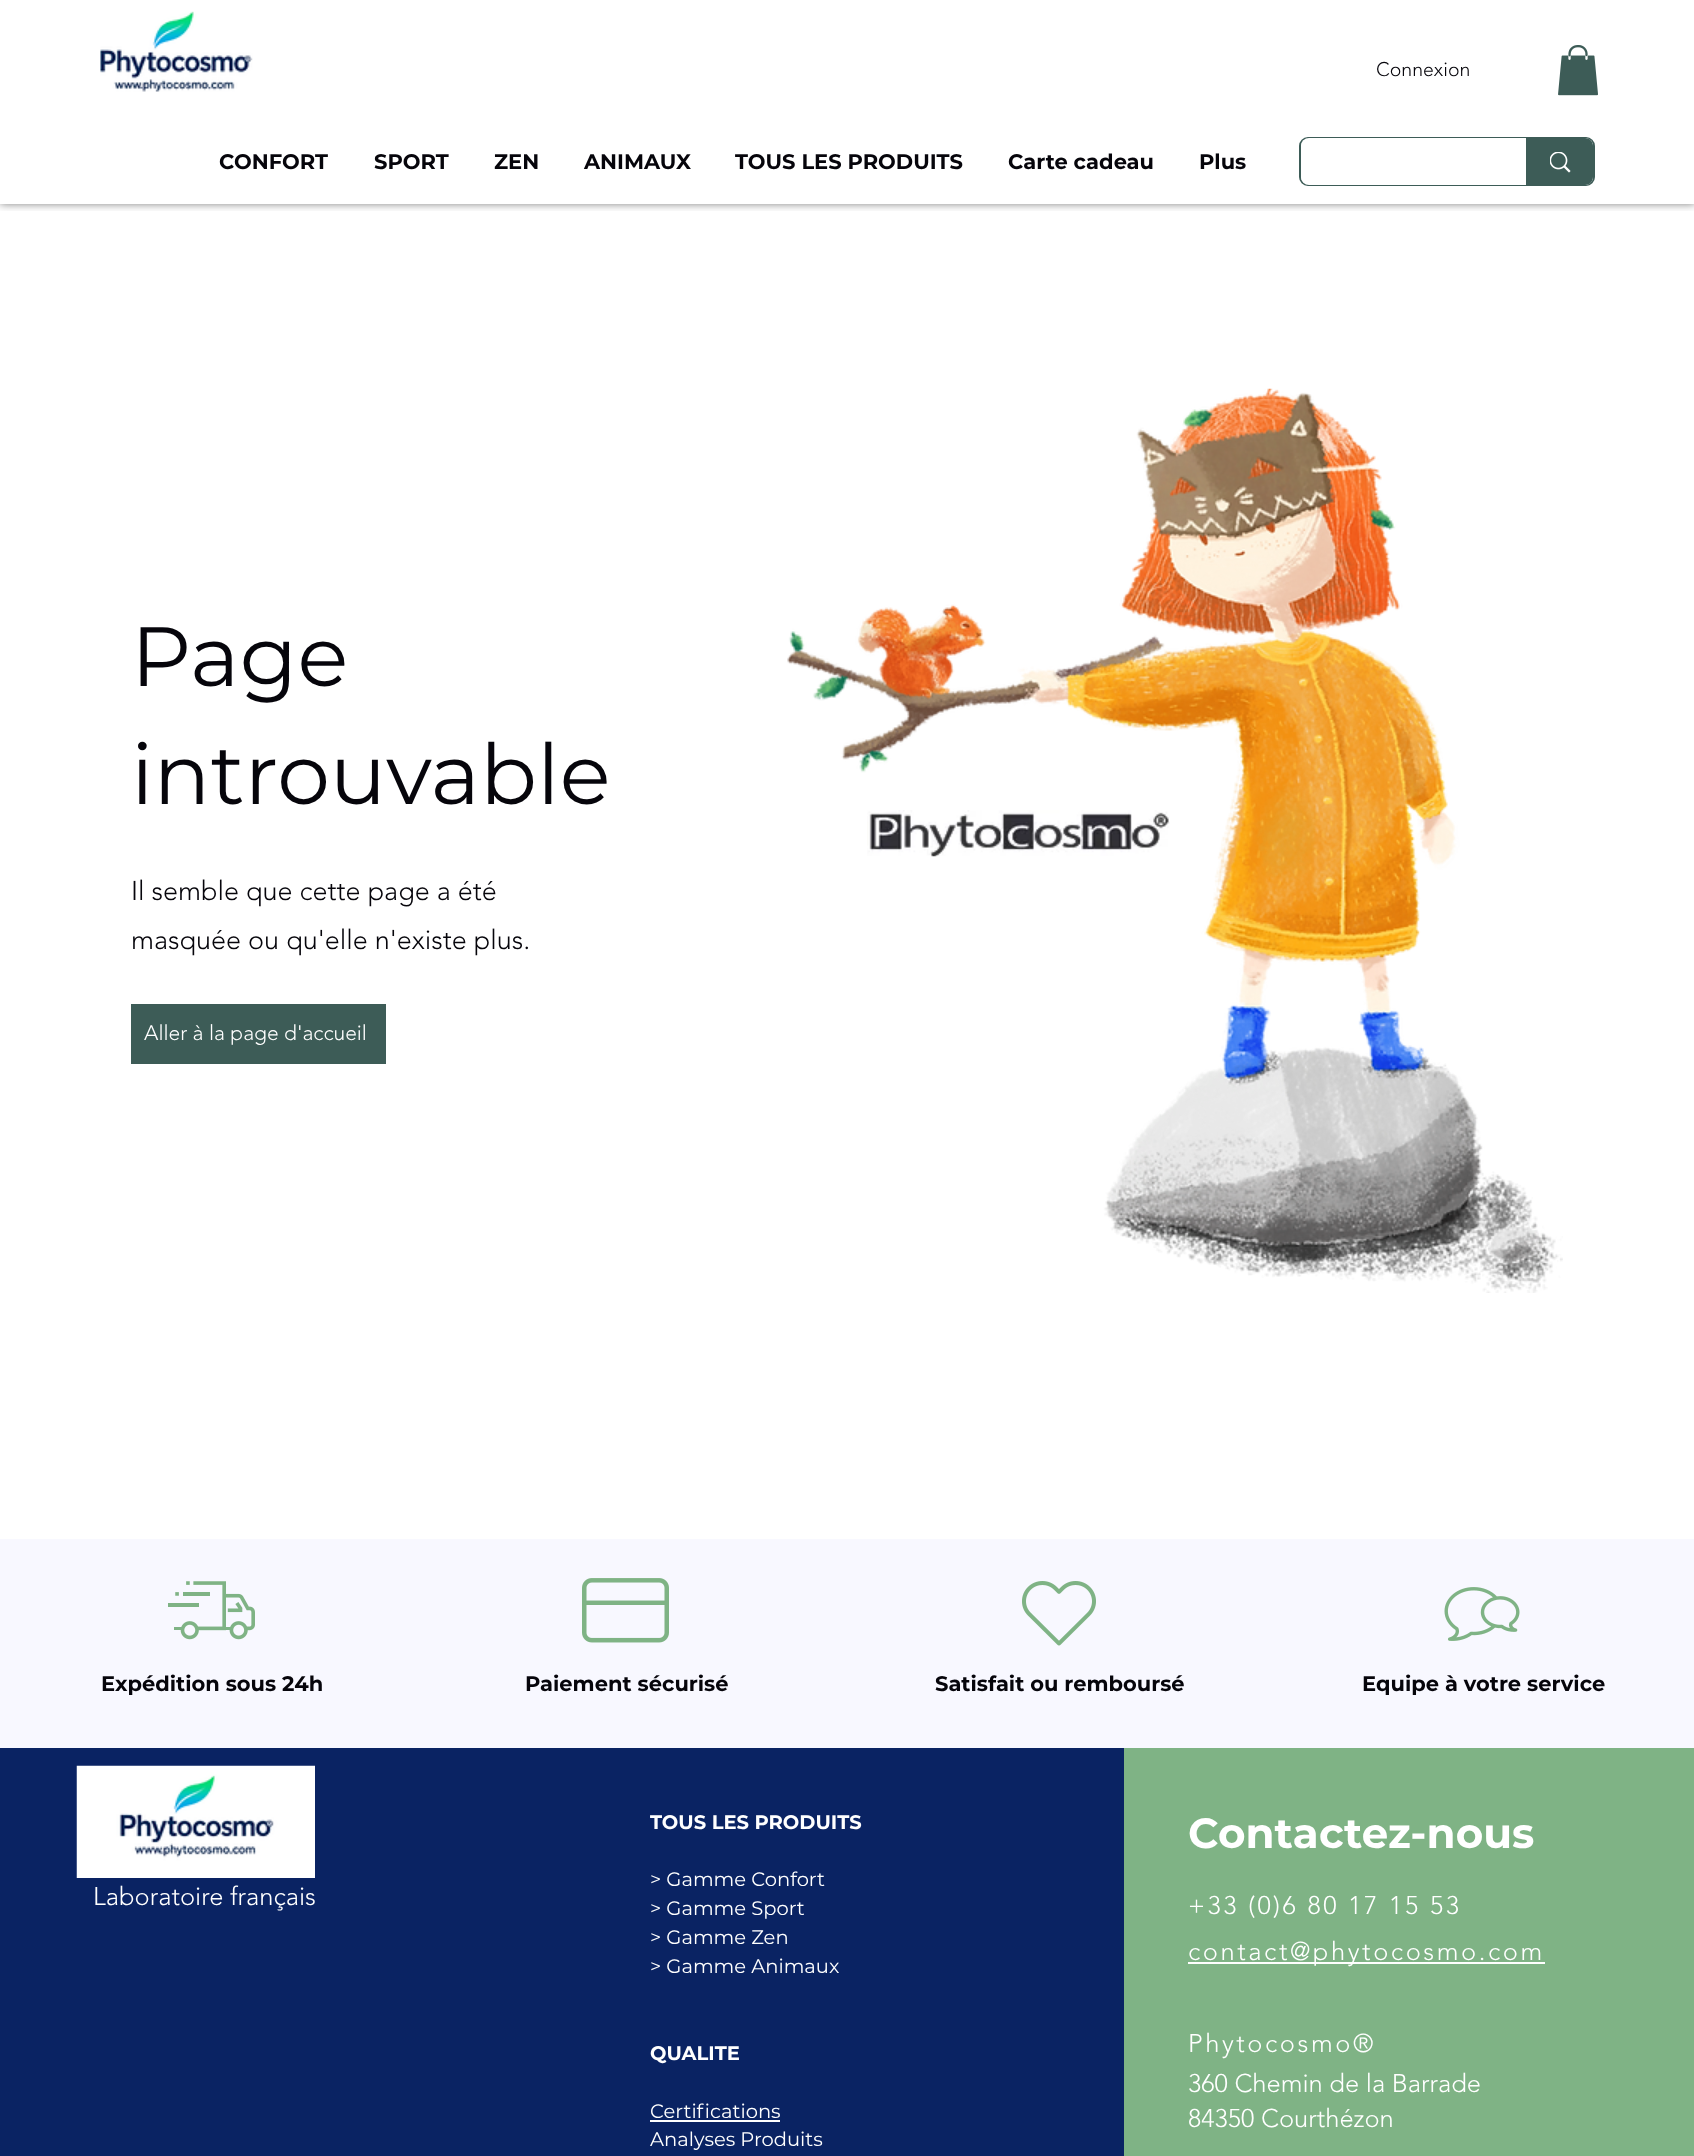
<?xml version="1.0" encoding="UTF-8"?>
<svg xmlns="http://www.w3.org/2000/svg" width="1694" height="2156">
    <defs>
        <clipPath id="clip1"><rect x="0" y="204" width="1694" height="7"/></clipPath>
        <filter id="blur1" x="-50%" y="-200%" width="200%" height="500%"><feGaussianBlur stdDeviation="4"/></filter>
    </defs>
    <rect width="100%" height="100%" fill="#FFFFFF"/>
    <g clip-path="url(#clip1)">
        <rect x="0" y="0" width="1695" height="204" fill="#000000" fill-opacity="0.5" filter="url(#blur1)"/>
    </g>
    <image x="100" y="11" width="153" height="81" href="img_01.png"/>
    <text x="1376" y="76" font-family="'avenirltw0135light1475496'" font-size="19.5" font-weight="300" fill="#06050B">Connexion</text>
    <image x="1558" y="45" width="40" height="51" href="img_02.png"/>
    <text x="219" y="169" font-family="Montserrat" font-size="21" font-weight="700" fill="#06050B">CONFORT</text>
    <text x="374" y="169" font-family="Montserrat" font-size="21" font-weight="700" fill="#06050B">SPORT</text>
    <text x="494" y="169" font-family="Montserrat" font-size="21" font-weight="700" fill="#06050B">ZEN</text>
    <text x="584" y="169" font-family="Montserrat" font-size="21" font-weight="700" fill="#06050B">ANIMAUX</text>
    <text x="735" y="169" font-family="Montserrat" font-size="21" font-weight="700" fill="#06050B">TOUS LES PRODUITS</text>
    <text x="1008" y="169" font-family="Montserrat" font-size="21" font-weight="700" fill="#06050B">Carte cadeau</text>
    <text x="1199" y="169" font-family="Montserrat" font-size="21" font-weight="700" fill="#06050B">Plus</text>
    <rect x="1300" y="138" width="294" height="47" rx="8" fill="none" stroke="#3D5C57" stroke-width="2"/>
    <rect x="1301" y="138" width="292" height="47" rx="8" fill="#FFFFFF"/>
    <path d="M 1526 138 H 1585 C 1589.5 138 1593 141.5 1593 146 V 177 C 1593 181.5 1589.5 185 1585 185 H 1526 Z" fill="#3D5C57"/>
    <image x="1550" y="152" width="21" height="21" href="img_03.png"/>
    <text font-family="Montserrat" font-size="84" fill="#06050B">
        <tspan x="131" y="686">Page</tspan>
        <tspan x="131" y="804">introuvable</tspan>
    </text>
    <image x="787" y="388" width="776" height="905" href="img_04.png"/>
    <image x="867" y="810" width="303" height="47" href="img_05.png"/>
    <text font-family="'avenirltw0135light1475496'" font-size="27" font-weight="300" fill="#06050B">
        <tspan x="131" y="900">Il semble que cette page a été</tspan>
        <tspan x="131" y="949">masquée ou qu'elle n'existe plus.</tspan>
    </text>
    <rect x="131" y="1004" width="255" height="60" fill="#3D5C57"/>
    <text x="144" y="1040" font-family="'avenirltw0135light1475496'" font-size="21" font-weight="300" fill="#FFFFFF">Aller à la page d'accueil</text>
    <rect x="0" y="1539" width="1694" height="209" fill="#F8F8FF"/>
    <image x="168" y="1581" width="87" height="59" href="img_06.png"/>
    <text x="101" y="1691" font-family="Montserrat" font-size="21" font-weight="700" fill="#06050B">Expédition sous 24h</text>
    <image x="582" y="1578" width="87" height="65" href="img_07.png"/>
    <text x="525" y="1691" font-family="Montserrat" font-size="21" font-weight="700" fill="#06050B">Paiement sécurisé</text>
    <image x="1022" y="1581" width="74" height="65" href="img_08.png"/>
    <text x="935" y="1691" font-family="Montserrat" font-size="21" font-weight="700" fill="#06050B">Satisfait ou remboursé</text>
    <image x="1444" y="1587" width="76" height="54" href="img_09.png"/>
    <text x="1362" y="1691" font-family="Montserrat" font-size="21" font-weight="700" fill="#06050B">Equipe à votre service</text>
    <rect x="0" y="1748" width="1124" height="408" fill="#0A2363"/>
    <image x="76" y="1765" width="239" height="113" href="img_10.png"/>
    <text x="93" y="1905" font-family="'avenirltw0135light1475496'" font-size="25.5" font-weight="300" fill="#FFFFFF">Laboratoire français</text>
    <text x="650" y="1829" font-family="Montserrat" font-size="19.5" font-weight="700" fill="#FFFFFF">TOUS LES PRODUITS</text>
    <text font-family="Montserrat" font-size="19.5" fill="#FFFFFF">
        <tspan x="650" y="1886">&gt; Gamme Confort</tspan>
        <tspan x="650" y="1915">&gt; Gamme Sport</tspan>
        <tspan x="650" y="1944">&gt; Gamme Zen</tspan>
        <tspan x="650" y="1973">&gt; Gamme Animaux</tspan>
    </text>
    <text x="650" y="2060" font-family="Montserrat" font-size="19.5" font-weight="700" fill="#FFFFFF">QUALITE</text>
    <text x="650" y="2118" font-family="Montserrat" font-size="19.5" fill="#FFFFFF">Certifications</text>
    <rect x="650" y="2120" width="130" height="2" fill="#FFFFFF"/>
    <text x="650" y="2146" font-family="Montserrat" font-size="19.5" fill="#FFFFFF">Analyses Produits</text>
    <rect x="1124" y="1748" width="570" height="408" fill="#7FB385"/>
    <text x="1188" y="1848" font-family="Montserrat" font-size="42" font-weight="700" fill="#FFFFFF">Contactez-nous</text>
    <text x="1188" y="1914" font-family="'avenirltw0135light1475496'" font-size="25.5" font-weight="300" letter-spacing="2.55" fill="#FFFFFF">+33 (0)6 80 17 15 53</text>
    <rect x="1188" y="1962" width="357" height="2" fill="#FFFFFF"/>
    <text x="1188" y="1960" font-family="'avenirltw0135light1475496'" font-size="25.5" font-weight="300" letter-spacing="2.55" fill="#FFFFFF">contact@phytocosmo.com</text>
    <text x="1188" y="2052" font-family="'avenirltw0135light1475496'" font-size="25.5" font-weight="300" letter-spacing="2.55" fill="#FFFFFF">Phytocosmo®</text>
    <text font-family="'avenirltw0135light1475496'" font-size="25.5" font-weight="300" fill="#FFFFFF">
        <tspan x="1188" y="2092">360 Chemin de la Barrade</tspan>
        <tspan x="1188" y="2127">84350 Courthézon</tspan>
    </text>
</svg>
